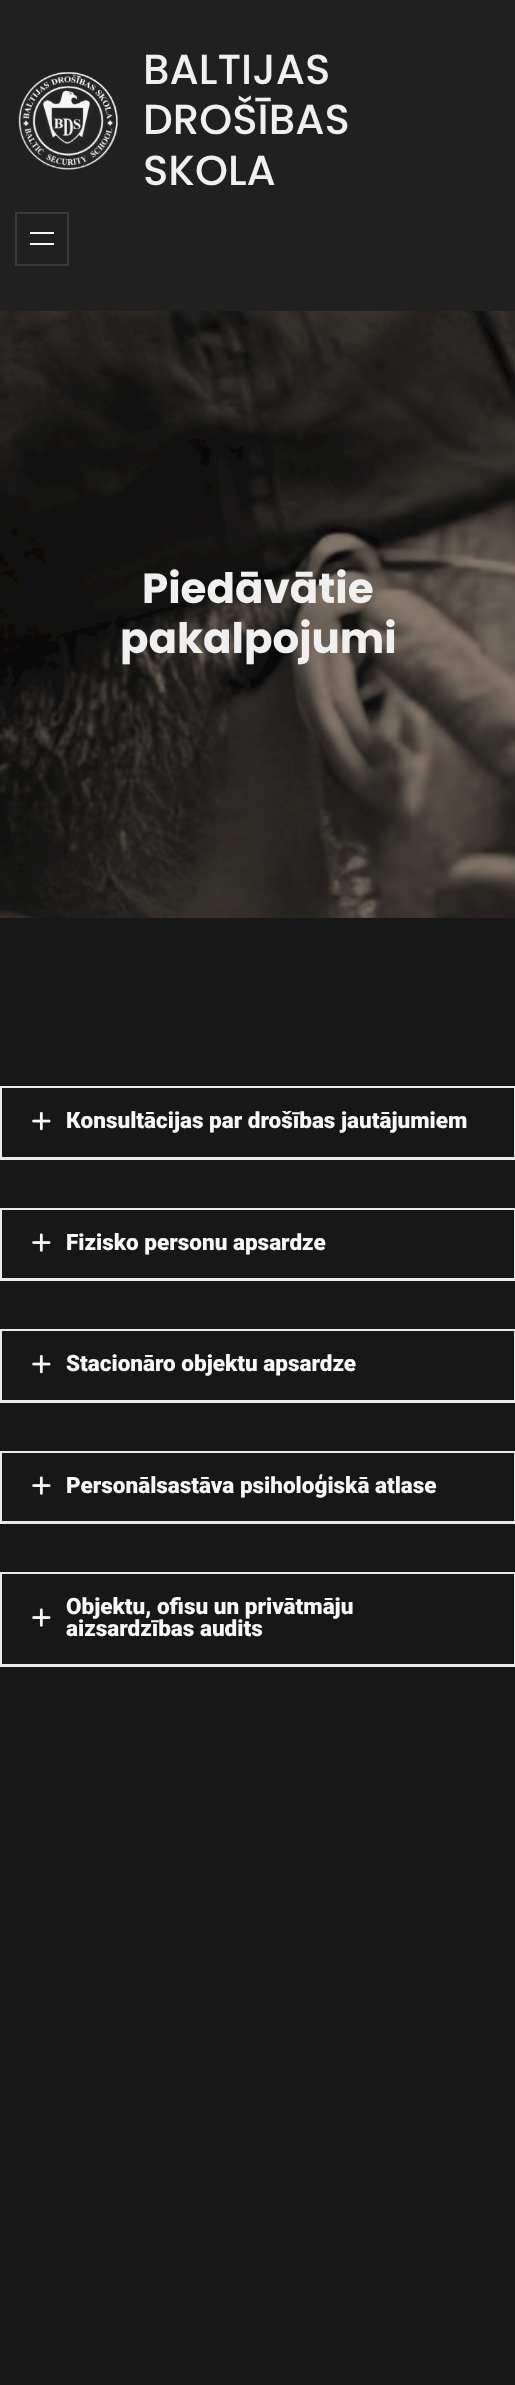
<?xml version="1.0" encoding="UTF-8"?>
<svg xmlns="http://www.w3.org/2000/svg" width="515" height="2385">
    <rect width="100%" height="100%" fill="#171717"/>
    <rect x="0" y="0" width="515" height="311" fill="#202020"/>
    <image x="18" y="72" width="100" height="99" href="img_01.png"/>
    <text font-family="Poppins" font-size="42" font-weight="500" fill="#F0F0F0">
        <tspan x="143" y="84">BALTIJAS</tspan>
        <tspan x="143" y="134">DROŠĪBAS</tspan>
        <tspan x="143" y="185">SKOLA</tspan>
    </text>
    <rect x="16" y="213" width="52" height="52" fill="none" stroke="#3A3A3A" stroke-width="2"/>
    <rect x="30" y="232" width="24" height="2" fill="#F7F7F7"/>
    <rect x="30" y="243" width="24" height="2" fill="#F7F7F7"/>
    <image x="0" y="311" width="515" height="607" href="img_02.png"/>
    <text x="142" y="603" font-family="Poppins" font-size="42" font-weight="700" fill="#F0F0F0">Piedāvātie</text>
    <text x="120" y="653" font-family="Poppins" font-size="42" font-weight="700" fill="#F0F0F0">pakalpojumi</text>
    <rect x="1" y="1087" width="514" height="72" fill="none" stroke="#EAEAEB" stroke-width="2"/>
    <rect x="2" y="1157" width="513" height="1" fill="#EAEAEB"/>
    <image x="32" y="1111" width="19" height="20" href="img_03.png"/>
    <text x="66" y="1128" font-family="Roboto" font-size="22.5" font-weight="900" fill="#F7F7F7">Кonsultācijas par drošības jautājumiem</text>
    <rect x="1" y="1209" width="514" height="71" fill="none" stroke="#EAEAEB" stroke-width="2"/>
    <rect x="2" y="1278" width="513" height="1" fill="#EAEAEB"/>
    <image x="32" y="1233" width="19" height="19" href="img_04.png"/>
    <text x="66" y="1250" font-family="Roboto" font-size="22.5" font-weight="900" fill="#F7F7F7">Fizisko personu apsardze</text>
    <rect x="1" y="1330" width="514" height="72" fill="none" stroke="#EAEAEB" stroke-width="2"/>
    <rect x="2" y="1400" width="513" height="1" fill="#EAEAEB"/>
    <image x="32" y="1354" width="19" height="20" href="img_03.png"/>
    <text x="66" y="1371" font-family="Roboto" font-size="22.5" font-weight="900" fill="#F7F7F7">Stacionāro objektu apsardze</text>
    <rect x="1" y="1452" width="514" height="71" fill="none" stroke="#EAEAEB" stroke-width="2"/>
    <rect x="2" y="1521" width="513" height="1" fill="#EAEAEB"/>
    <image x="32" y="1476" width="19" height="19" href="img_04.png"/>
    <text x="66" y="1493" font-family="Roboto" font-size="22.5" font-weight="900" fill="#F7F7F7">Personālsastāva psiholoģiskā atlase</text>
    <rect x="1" y="1573" width="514" height="93" fill="none" stroke="#EAEAEB" stroke-width="2"/>
    <rect x="2" y="1664" width="513" height="1" fill="#EAEAEB"/>
    <image x="32" y="1608" width="19" height="19" href="img_04.png"/>
    <text font-family="Roboto" font-size="22.5" font-weight="900" fill="#F7F7F7">
        <tspan x="66" y="1614">Objektu, ofisu un privātmāju</tspan>
        <tspan x="66" y="1636">aizsardzības audits</tspan>
    </text>
</svg>
